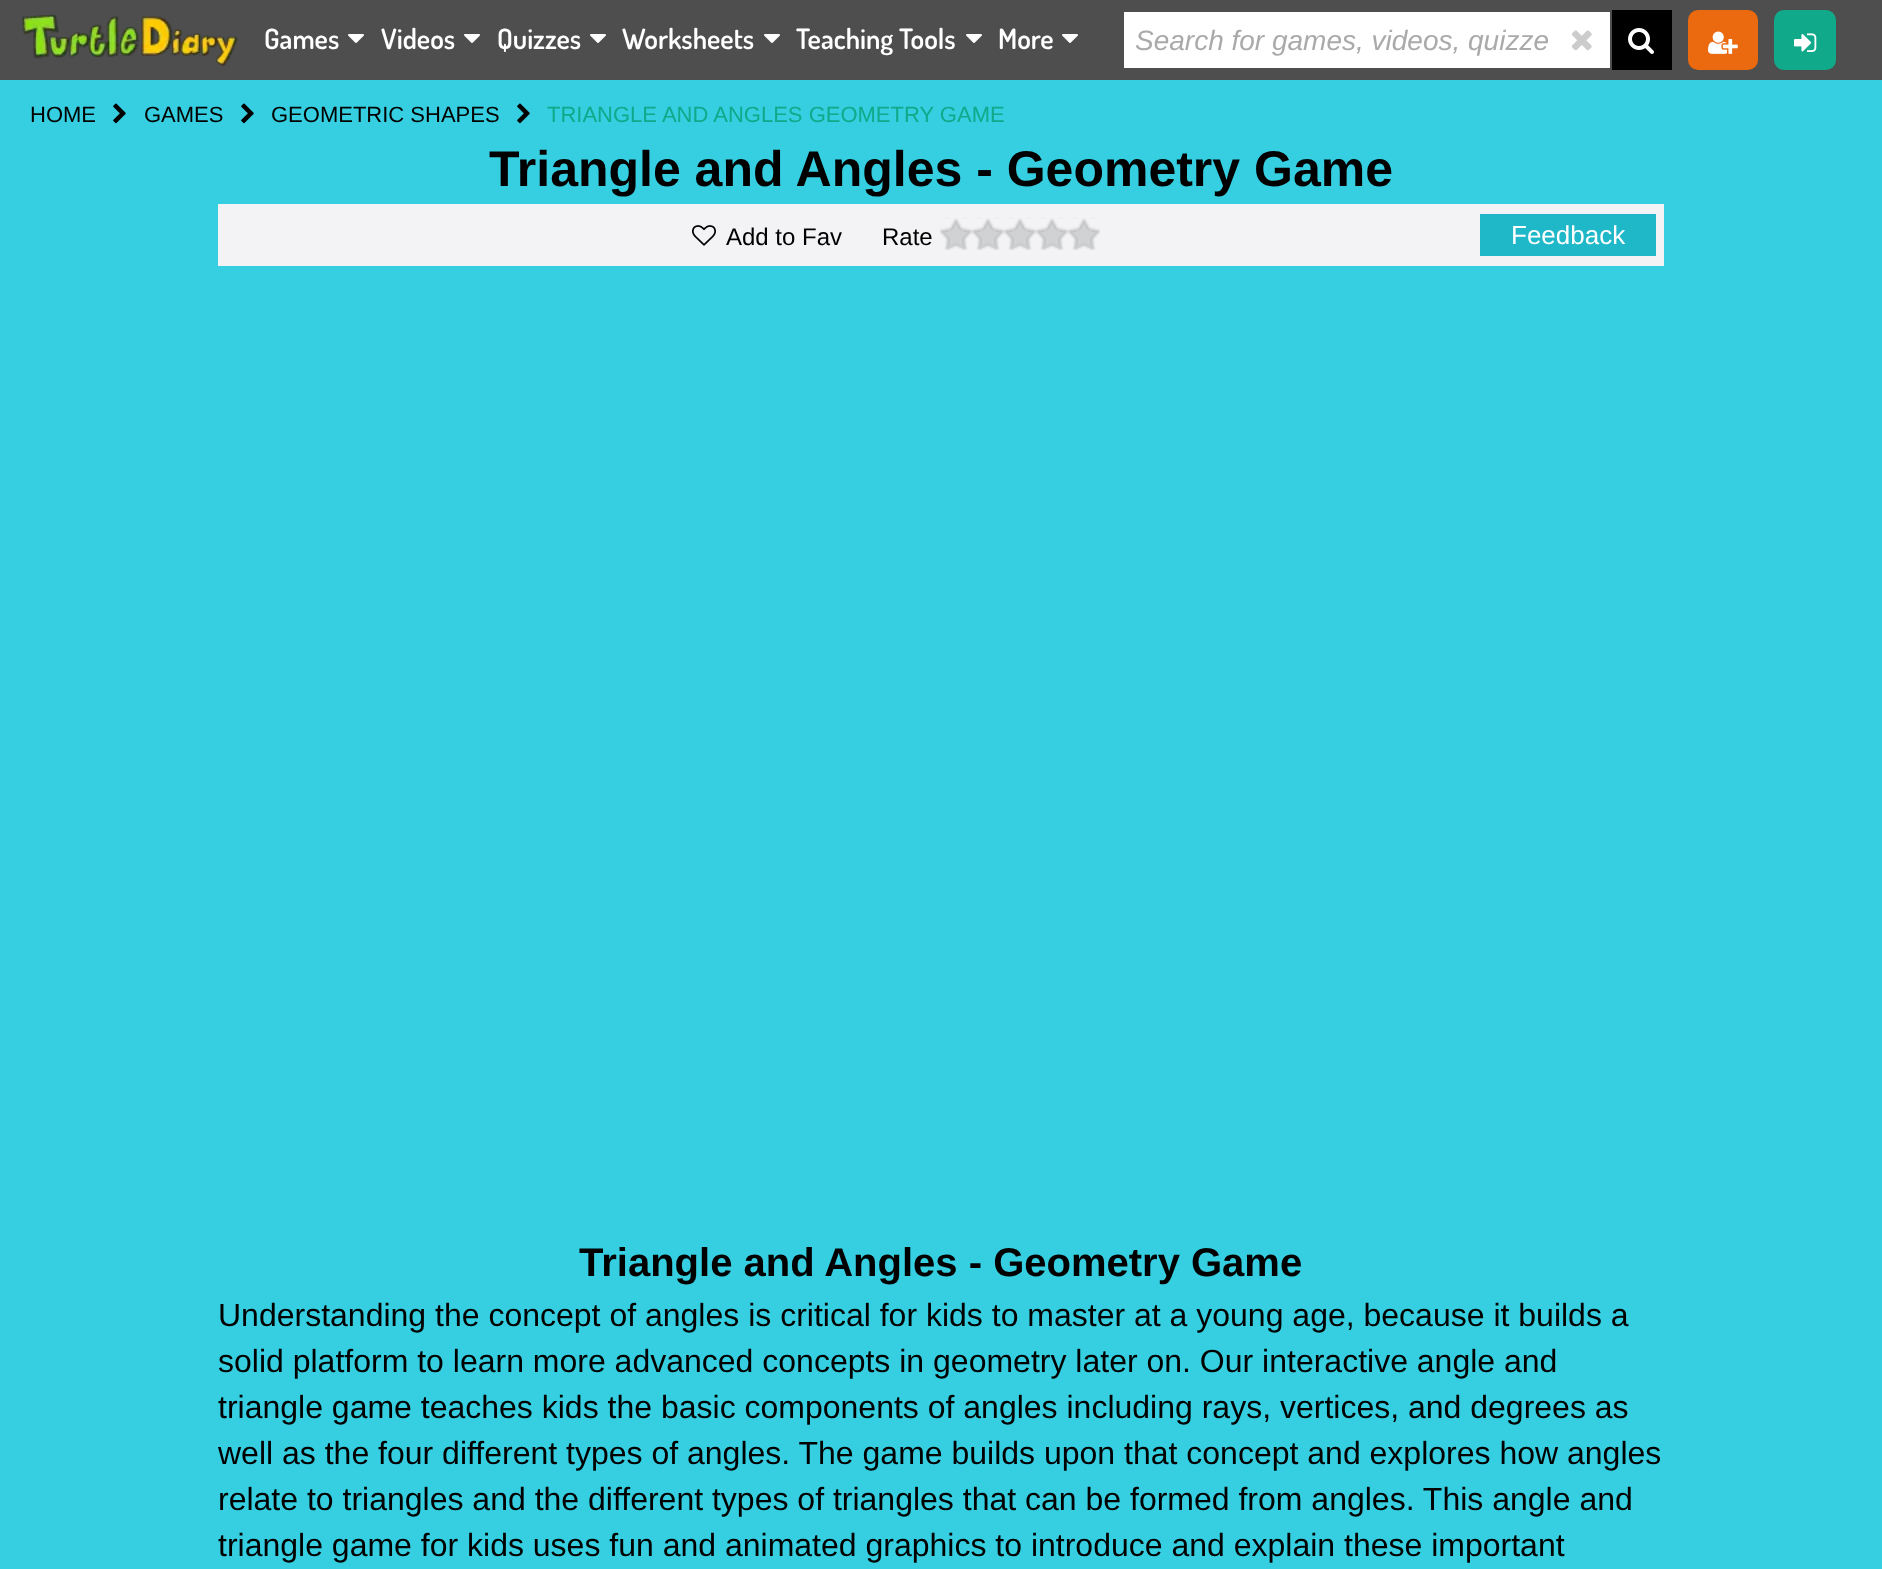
<?xml version="1.0" encoding="UTF-8"?>
<svg xmlns="http://www.w3.org/2000/svg" width="1882" height="1569">
    <rect width="100%" height="100%" fill="#4E4E4E"/>
    <image x="22" y="14" width="216" height="52" href="img_01.png"/>
    <text x="264" y="49" font-family="Dosis" font-size="28" font-weight="600" fill="#FFFFFF">Games</text>
    <image x="348" y="34" width="16" height="9" href="img_02.png"/>
    <text x="381" y="49" font-family="Dosis" font-size="28" font-weight="600" fill="#FFFFFF">Videos</text>
    <image x="464" y="34" width="16" height="9" href="img_02.png"/>
    <text x="497" y="49" font-family="Dosis" font-size="28" font-weight="600" fill="#FFFFFF">Quizzes</text>
    <image x="590" y="34" width="16" height="9" href="img_02.png"/>
    <text x="622" y="49" font-family="Dosis" font-size="28" font-weight="600" fill="#FFFFFF">Worksheets</text>
    <image x="764" y="34" width="16" height="9" href="img_02.png"/>
    <text x="796" y="49" font-family="Dosis" font-size="28" font-weight="600" fill="#FFFFFF">Teaching Tools</text>
    <image x="966" y="34" width="16" height="9" href="img_02.png"/>
    <text x="998" y="49" font-family="Dosis" font-size="28" font-weight="600" fill="#FFFFFF">More</text>
    <image x="1062" y="34" width="16" height="9" href="img_02.png"/>
    <rect x="1124" y="12" width="486" height="56" fill="#FFFFFF"/>
    <text x="1135" y="50" font-family="Liberation Sans" font-size="28" font-style="italic" fill="#AAAAAA">Search for games, videos, quizze</text>
    <image x="1571" y="30" width="21" height="21" href="img_03.png"/>
    <rect x="1612" y="10" width="60" height="60" fill="#000000"/>
    <image x="1628" y="28" width="26" height="26" href="img_04.png"/>
    <rect x="1688" y="10" width="70" height="60" rx="10" fill="#EB690F"/>
    <image x="1708" y="31" width="30" height="23" href="img_05.png"/>
    <rect x="1774" y="10" width="62" height="60" rx="10" fill="#10A98A"/>
    <image x="1794" y="33" width="23" height="19" href="img_06.png"/>
    <rect x="0" y="80" width="1882" height="1489" fill="#35CFE1"/>
    <text x="30" y="122" font-family="Liberation Sans" font-size="22" fill="#000000">HOME</text>
    <image x="113" y="103" width="13" height="21" href="img_07.png"/>
    <text x="144" y="122" font-family="Liberation Sans" font-size="22" fill="#000000">GAMES</text>
    <image x="241" y="103" width="13" height="21" href="img_07.png"/>
    <text x="271" y="122" font-family="Liberation Sans" font-size="22" fill="#000000">GEOMETRIC SHAPES</text>
    <image x="517" y="103" width="13" height="21" href="img_07.png"/>
    <text x="547" y="122" font-family="Liberation Sans" font-size="22" fill="#10A98A">TRIANGLE AND ANGLES GEOMETRY GAME</text>
    <text x="489" y="186" font-family="Liberation Sans" font-size="50" font-weight="700" fill="#000000">Triangle and Angles - Geometry Game</text>
    <rect x="218" y="204" width="1446" height="62" fill="#F3F3F5"/>
    <image x="692" y="225" width="24" height="21" href="img_08.png"/>
    <text x="726" y="245" font-family="Liberation Sans" font-size="24" fill="#000000">Add to Fav</text>
    <text x="882" y="245" font-family="Liberation Sans" font-size="24" fill="#000000">Rate</text>
    <image x="940" y="218" width="160" height="32" href="img_09.png"/>
    <rect x="1480" y="214" width="176" height="42" fill="#1FB8C9"/>
    <text x="1511" y="244" font-family="Liberation Sans" font-size="26" fill="#FFFFFF">Feedback</text>
    <text x="579" y="1276" font-family="Liberation Sans" font-size="40" font-weight="700" fill="#000000">Triangle and Angles - Geometry Game</text>
    <text font-family="Liberation Sans" font-size="32" fill="#000000">
        <tspan x="218" y="1326">Understanding the concept of angles is critical for kids to master at a young age, because it builds a</tspan>
        <tspan x="218" y="1372">solid platform to learn more advanced concepts in geometry later on. Our interactive angle and</tspan>
        <tspan x="218" y="1418">triangle game teaches kids the basic components of angles including rays, vertices, and degrees as</tspan>
        <tspan x="218" y="1464">well as the four different types of angles. The game builds upon that concept and explores how angles</tspan>
        <tspan x="218" y="1510">relate to triangles and the different types of triangles that can be formed from angles. This angle and</tspan>
        <tspan x="218" y="1556">triangle game for kids uses fun and animated graphics to introduce and explain these important</tspan>
    </text>
</svg>
